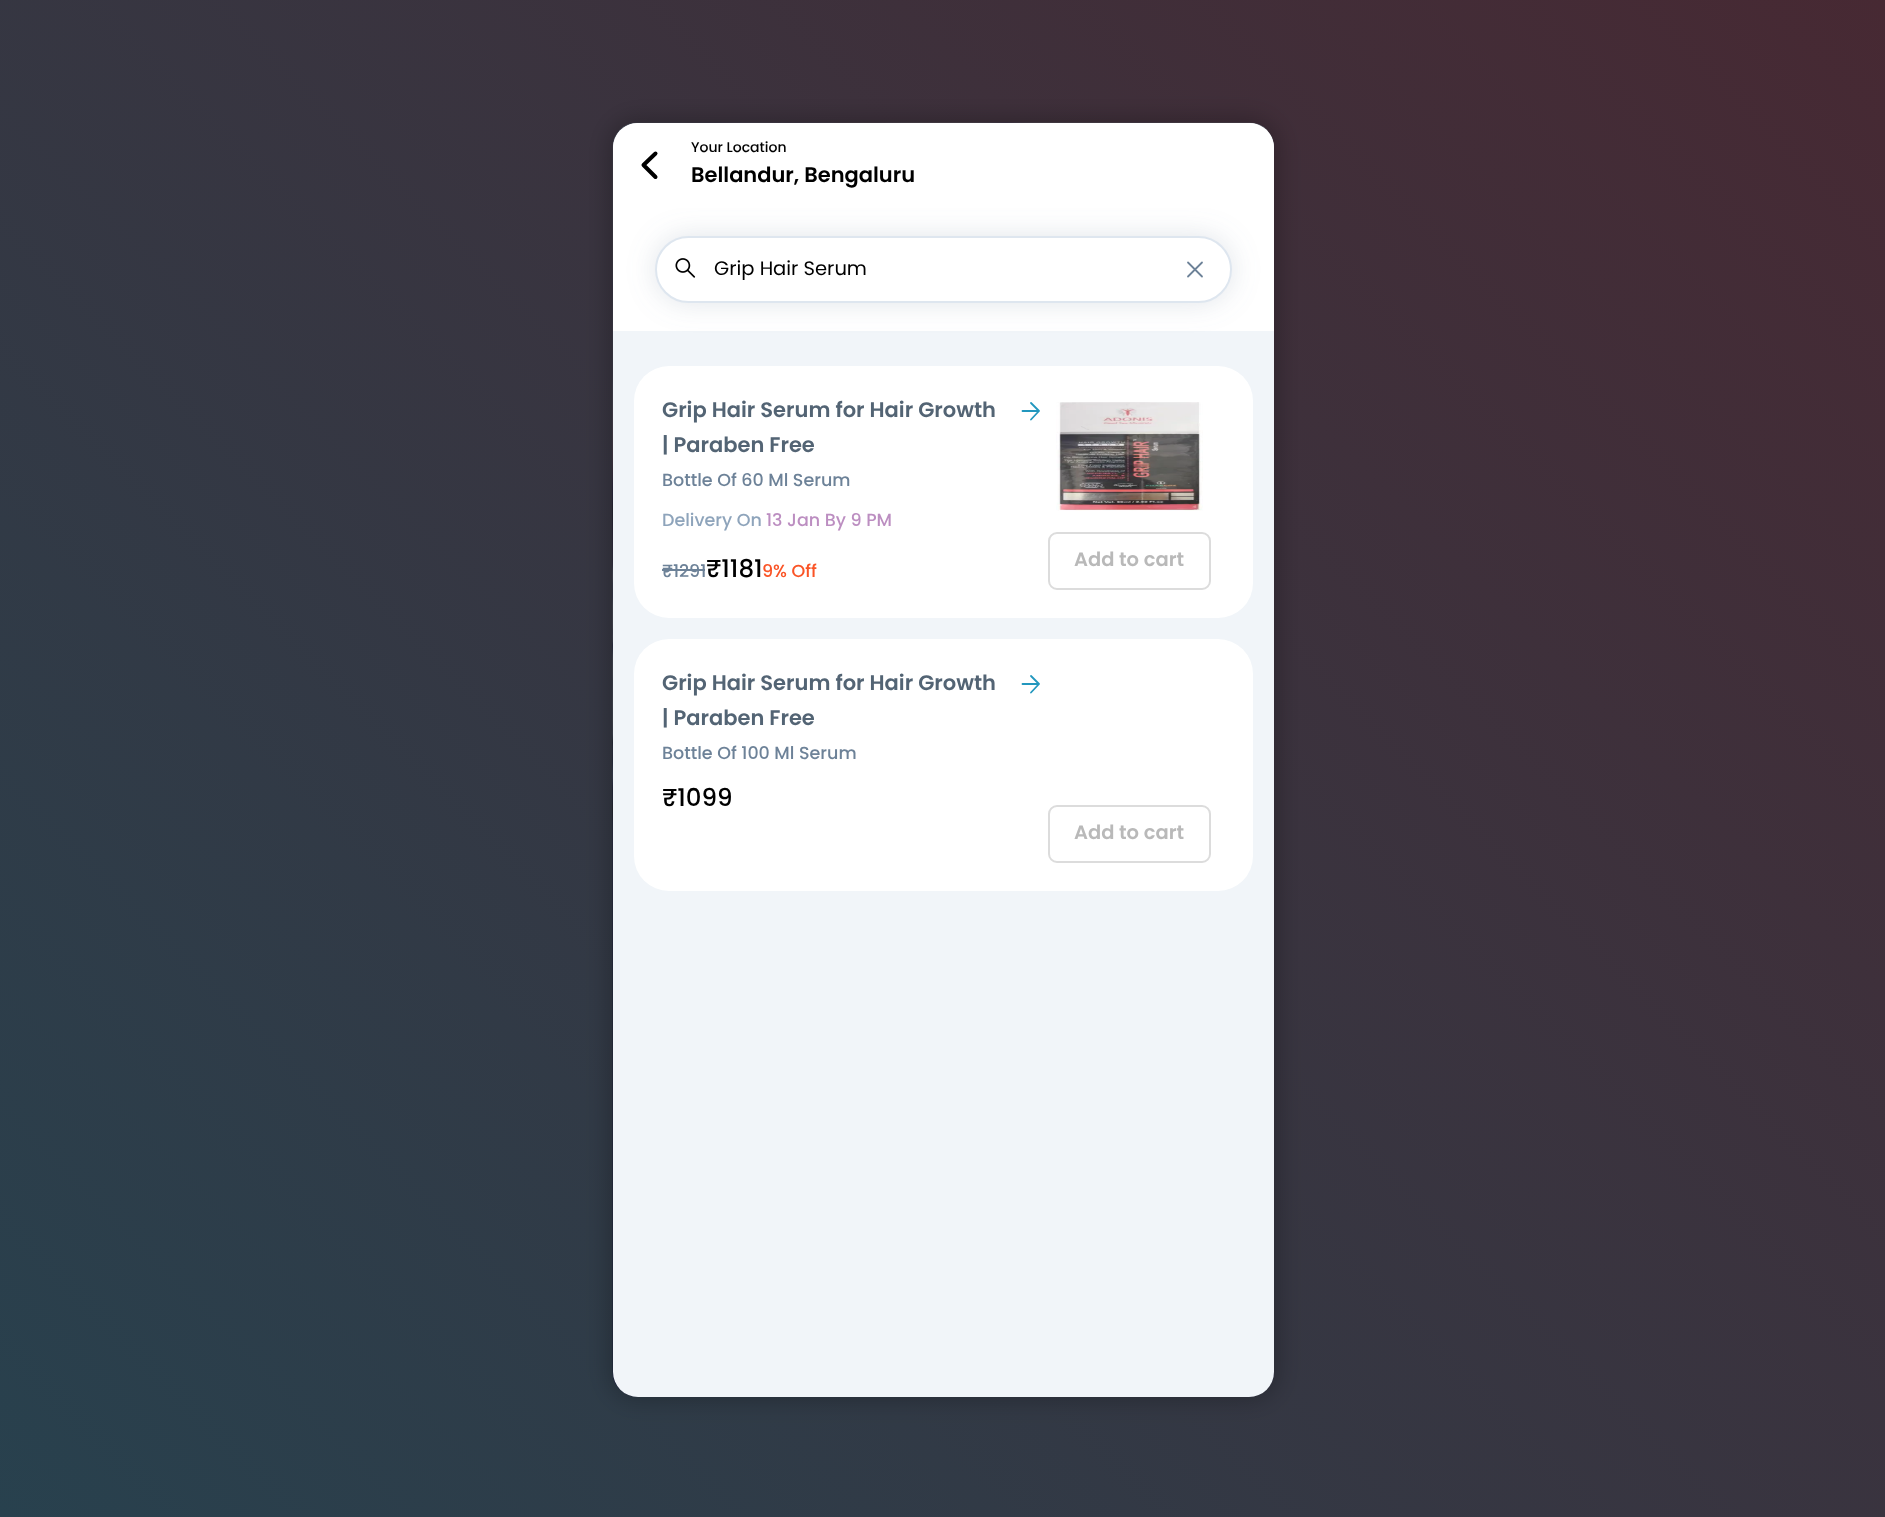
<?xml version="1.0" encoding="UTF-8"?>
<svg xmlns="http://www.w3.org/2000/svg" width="1885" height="1517">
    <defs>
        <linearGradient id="g1" gradientUnits="userSpaceOnUse" x1="92" y1="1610" x2="1794" y2="-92"><stop offset="0" stop-color="#28414E"/><stop offset="1" stop-color="#472933"/></linearGradient>
        <filter id="blur1" x="-50%" y="-200%" width="200%" height="500%"><feGaussianBlur stdDeviation="12"/></filter>
        <filter id="blur2" x="-50%" y="-200%" width="200%" height="500%"><feGaussianBlur stdDeviation="14"/></filter>
    </defs>
    <rect width="100%" height="100%" fill="#FFFFFF"/>
    <rect x="0" y="0" width="1885" height="1517" fill="url(#g1)"/>
    <rect x="609" y="119" width="669" height="1281" rx="28" fill="#000000" fill-opacity="0.25" filter="url(#blur1)"/>
    <image x="612" y="122" width="662" height="1275" href="img_01.png"/>
    <rect x="613" y="123" width="661" height="1274" rx="25" fill="#F1F5F9"/>
    <rect x="613" y="208" width="661" height="123" fill="#FFFFFF"/>
    <rect x="655" y="236" width="577" height="67" rx="33.5" fill="#8495A6" fill-opacity="0.25" filter="url(#blur2)"/>
    <path d="M 638 123 H 1249 C 1263 123 1274 134 1274 148 V 208 H 613 V 148 C 613 134 624 123 638 123 Z" fill="#FFFFFF"/>
    <path d="M 655.5 177 L 643.5 165 L 655.5 153.5" fill="none" stroke="#000000" stroke-width="4" stroke-linecap="round" stroke-linejoin="round"/>
    <text x="691" y="152" font-family="Poppins" font-size="14" font-weight="500" fill="#000000">Your Location</text>
    <text x="691" y="182" font-family="Poppins" font-size="21" font-weight="600" fill="#000000">Bellandur, Bengaluru</text>
    <rect x="656" y="237" width="575" height="65" rx="32.5" fill="#FFFFFF" stroke="#DEE6EF" stroke-width="2"/>
    <image x="675" y="258" width="21" height="20" href="img_02.png"/>
    <text x="714" y="275" font-family="Poppins" font-size="19.5" fill="#000000">Grip Hair Serum</text>
    <path d="M 1202 262.5 L 1188 276.5 M 1188 262.5 L 1202 276.5" fill="none" stroke="#6D8298" stroke-width="1.8" stroke-linecap="round" stroke-linejoin="round"/>
    <rect x="634" y="366" width="619" height="252" rx="35" fill="#FFFFFF"/>
    <text font-family="Poppins" font-size="21" font-weight="600" fill="#536474">
        <tspan x="662" y="417">Grip Hair Serum for Hair Growth</tspan>
        <tspan x="662" y="452">| Paraben Free</tspan>
    </text>
    <path d="M 1022.5 411 H 1039 M 1031 403 L 1039 411 L 1031 419.5" fill="none" stroke="#2297BE" stroke-width="1.8" stroke-linecap="round" stroke-linejoin="round"/>
    <text x="662" y="486" font-family="Poppins" font-size="17.5" font-weight="500" fill="#6D8298">Bottle Of 60 Ml Serum</text>
    <text x="662" y="526" font-family="Poppins" font-size="17.5" font-weight="500" fill="#8EA4BB">Delivery On</text>
    <text x="766" y="526" font-family="Poppins" font-size="17.5" font-weight="500" fill="#BC8EC1">13 Jan By 9 PM</text>
    <text x="662" y="577" font-family="Poppins" font-size="17.5" font-weight="500" fill="#6D8298">₹1291</text>
    <rect x="662" y="569" width="43" height="2" fill="#6D8298"/>
    <text x="706" y="577" font-family="Poppins" font-size="24.5" font-weight="500" fill="#000000">₹1181</text>
    <text x="762" y="577" font-family="Poppins" font-size="17.5" font-weight="500" fill="#FA5426">9% Off</text>
    <image x="1056" y="402" width="147" height="109" href="img_03.png"/>
    <rect x="1049" y="533" width="161" height="56" rx="8" fill="none" stroke="#DCDCDC" stroke-width="2"/>
    <text x="1074" y="566" font-family="Poppins" font-size="19.5" font-weight="600" fill="#B9B9B9">Add to cart</text>
    <rect x="634" y="639" width="619" height="252" rx="35" fill="#FFFFFF"/>
    <text font-family="Poppins" font-size="21" font-weight="600" fill="#536474">
        <tspan x="662" y="690">Grip Hair Serum for Hair Growth</tspan>
        <tspan x="662" y="725">| Paraben Free</tspan>
    </text>
    <path d="M 1022.5 684 H 1039 M 1031 676 L 1039 684 L 1031 692.5" fill="none" stroke="#2297BE" stroke-width="1.8" stroke-linecap="round" stroke-linejoin="round"/>
    <text x="662" y="759" font-family="Poppins" font-size="17.5" font-weight="500" fill="#6D8298">Bottle Of 100 Ml Serum</text>
    <text x="662" y="806" font-family="Poppins" font-size="24.5" font-weight="500" fill="#000000">₹1099</text>
    <rect x="1049" y="806" width="161" height="56" rx="8" fill="none" stroke="#DCDCDC" stroke-width="2"/>
    <text x="1074" y="839" font-family="Poppins" font-size="19.5" font-weight="600" fill="#B9B9B9">Add to cart</text>
</svg>
